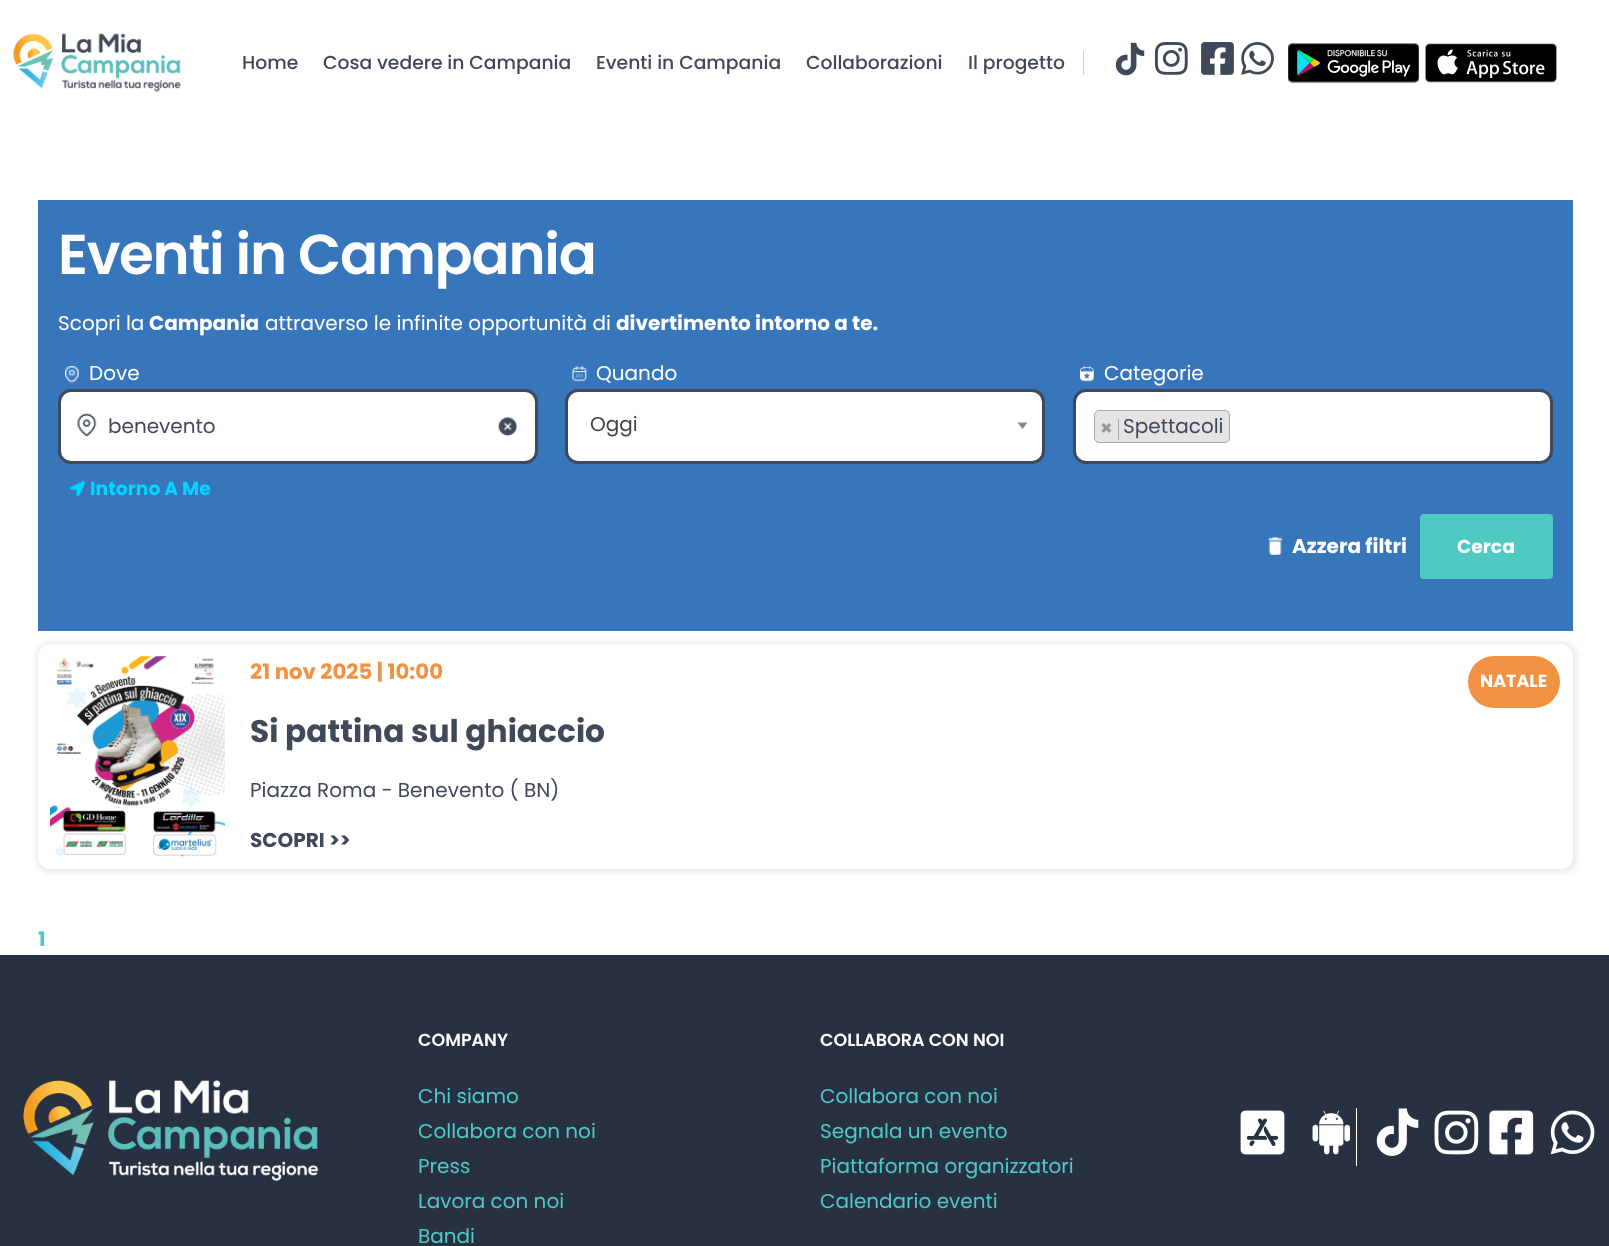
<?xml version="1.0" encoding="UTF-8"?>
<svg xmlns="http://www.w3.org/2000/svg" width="1609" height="1246">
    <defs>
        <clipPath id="clip1"><path d="M 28 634 H 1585 V 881 H 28 Z M 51 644 H 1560 C 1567 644 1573 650 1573 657 V 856 C 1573 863 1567 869 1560 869 H 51 C 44 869 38 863 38 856 V 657 C 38 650 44 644 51 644 Z" clip-rule="evenodd"/></clipPath>
        <filter id="blur1" x="-50%" y="-200%" width="200%" height="500%"><feGaussianBlur stdDeviation="2"/></filter>
    </defs>
    <rect width="100%" height="100%" fill="#FFFFFF"/>
    <image x="13" y="33" width="168" height="59" href="img_01.png"/>
    <text x="242" y="69" font-family="Poppins" font-size="18.75" font-weight="500" fill="#40495A">Home</text>
    <text x="323" y="69" font-family="Poppins" font-size="18.75" font-weight="500" fill="#40495A">Cosa vedere in Campania</text>
    <text x="596" y="69" font-family="Poppins" font-size="18.75" font-weight="500" fill="#40495A">Eventi in Campania</text>
    <text x="806" y="69" font-family="Poppins" font-size="18.75" font-weight="500" fill="#40495A">Collaborazioni</text>
    <text x="968" y="69" font-family="Poppins" font-size="18.75" font-weight="500" fill="#40495A">Il progetto</text>
    <rect x="1083" y="50" width="1" height="25" fill="#CFCFCF"/>
    <image x="1115" y="42" width="30" height="34" href="img_02.png"/>
    <image x="1154" y="42" width="34" height="33" href="img_03.png"/>
    <image x="1201" y="42" width="33" height="33" href="img_04.png"/>
    <image x="1241" y="42" width="33" height="33" href="img_05.png"/>
    <image x="1288" y="43" width="131" height="40" href="img_06.png"/>
    <image x="1425" y="43" width="132" height="40" href="img_07.png"/>
    <rect x="38" y="200" width="1535" height="431" fill="#3776BB"/>
    <text x="58" y="274" font-family="Poppins" font-size="56.25" font-weight="600" letter-spacing="-1.25" fill="#FFFFFF">Eventi in Campania</text>
    <text x="58" y="330" font-family="Poppins" font-size="20" fill="#FFFFFF">Scopri la</text>
    <text x="149" y="330" font-family="Poppins" font-size="20" font-weight="700" fill="#FFFFFF">Campania</text>
    <text x="265" y="330" font-family="Poppins" font-size="20" fill="#FFFFFF">attraverso le infinite opportunità di</text>
    <text x="616" y="330" font-family="Poppins" font-size="20" font-weight="700" fill="#FFFFFF">divertimento intorno a te.</text>
    <image x="65" y="366" width="14" height="17" href="img_08.png"/>
    <text x="89" y="380" font-family="Poppins" font-size="20" fill="#FFFFFF">Dove</text>
    <rect x="59.5" y="390.5" width="477" height="72" rx="11.5" fill="#FFFFFF" stroke="#40495A" stroke-width="3"/>
    <image x="77" y="413" width="20" height="24" href="img_09.png"/>
    <text x="108" y="433" font-family="Poppins" font-size="20" fill="#40495A">benevento</text>
    <image x="498" y="417" width="20" height="20" href="img_10.png"/>
    <image x="70" y="481" width="15" height="16" href="img_11.png"/>
    <text x="90" y="495" font-family="Poppins" font-size="18.75" font-weight="700" fill="#00D6FF">Intorno A Me</text>
    <image x="572" y="366" width="15" height="16" href="img_12.png"/>
    <text x="596" y="380" font-family="Poppins" font-size="20" fill="#FFFFFF">Quando</text>
    <rect x="566.5" y="390.5" width="477" height="72" rx="11.5" fill="#FFFFFF" stroke="#40495A" stroke-width="3"/>
    <text x="590" y="431" font-family="Poppins" font-size="20" fill="#444444">Oggi</text>
    <path d="M 1017.5 422.5 H 1027.5 L 1022.5 429 Z" fill="#888888"/>
    <image x="1080" y="366" width="14" height="16" href="img_13.png"/>
    <text x="1104" y="380" font-family="Poppins" font-size="20" fill="#FFFFFF">Categorie</text>
    <rect x="1074.5" y="390.5" width="477" height="72" rx="11.5" fill="#FFFFFF" stroke="#40495A" stroke-width="3"/>
    <rect x="1094.5" y="410.5" width="135" height="32" rx="4.5" fill="#E4E4E4" stroke="#AAAAAA"/>
    <rect x="1118" y="419" width="1" height="21" fill="#AAAAAA"/>
    <text x="1100" y="435" font-family="Poppins" font-size="20" font-weight="700" fill="#999999">×</text>
    <text x="1123" y="433" font-family="Poppins" font-size="20" fill="#40495A">Spettacoli</text>
    <image x="1268" y="537" width="15" height="18" href="img_14.png"/>
    <text x="1292" y="553" font-family="Poppins" font-size="20" font-weight="700" fill="#FFFFFF">Azzera filtri</text>
    <rect x="1420" y="514" width="133" height="65" rx="4" fill="#50C9C3"/>
    <text x="1457" y="553" font-family="Poppins" font-size="18.75" font-weight="700" fill="#FFFFFF">Cerca</text>
    <g clip-path="url(#clip1)">
        <rect x="35" y="641" width="1543" height="233" rx="16" fill="#EFEFEF" filter="url(#blur1)"/>
    </g>
    <image x="50" y="656" width="175" height="201" href="img_15.png"/>
    <text x="250" y="679" font-family="Poppins" font-size="21.25" font-weight="700" fill="#F09241">21 nov 2025 | 10:00</text>
    <text x="250" y="742" font-family="Poppins" font-size="31.25" font-weight="700" fill="#40495A">Si pattina sul ghiaccio</text>
    <text x="250" y="797" font-family="Poppins" font-size="20" fill="#40495A">Piazza Roma - Benevento ( BN)</text>
    <text x="250" y="847" font-family="Poppins" font-size="20" font-weight="700" fill="#40495A">SCOPRI &gt;&gt;</text>
    <rect x="1468" y="656" width="92" height="52" rx="26" fill="#F09241"/>
    <text x="1480" y="687" font-family="Poppins" font-size="17.5" font-weight="700" fill="#FFFFFF">NATALE</text>
    <text x="38" y="946" font-family="Poppins" font-size="20" font-weight="700" fill="#50C9C3">1</text>
    <rect x="0" y="955" width="1609" height="291" fill="#283142"/>
    <image x="23" y="1080" width="296" height="101" href="img_16.png"/>
    <text x="418" y="1046" font-family="Poppins" font-size="17.5" font-weight="600" fill="#FFFFFF">COMPANY</text>
    <text font-family="Poppins" font-size="20" fill="#50C9C3">
        <tspan x="418" y="1103">Chi siamo</tspan>
        <tspan x="418" y="1138">Collabora con noi</tspan>
        <tspan x="418" y="1173">Press</tspan>
        <tspan x="418" y="1208">Lavora con noi</tspan>
        <tspan x="418" y="1243">Bandi</tspan>
    </text>
    <text x="820" y="1046" font-family="Poppins" font-size="17.5" font-weight="600" fill="#FFFFFF">COLLABORA CON NOI</text>
    <text font-family="Poppins" font-size="20" fill="#50C9C3">
        <tspan x="820" y="1103">Collabora con noi</tspan>
        <tspan x="820" y="1138">Segnala un evento</tspan>
        <tspan x="820" y="1173">Piattaforma organizzatori</tspan>
        <tspan x="820" y="1208">Calendario eventi</tspan>
    </text>
    <image x="1240" y="1110" width="45" height="45" href="img_17.png"/>
    <rect x="1356" y="1108" width="1" height="58" fill="#FFFFFF"/>
    <image x="1312" y="1110" width="38" height="45" href="img_18.png"/>
    <image x="1376" y="1108" width="43" height="48" href="img_19.png"/>
    <image x="1434" y="1110" width="45" height="45" href="img_20.png"/>
    <image x="1489" y="1110" width="45" height="45" href="img_21.png"/>
    <image x="1550" y="1110" width="45" height="45" href="img_22.png"/>
</svg>
